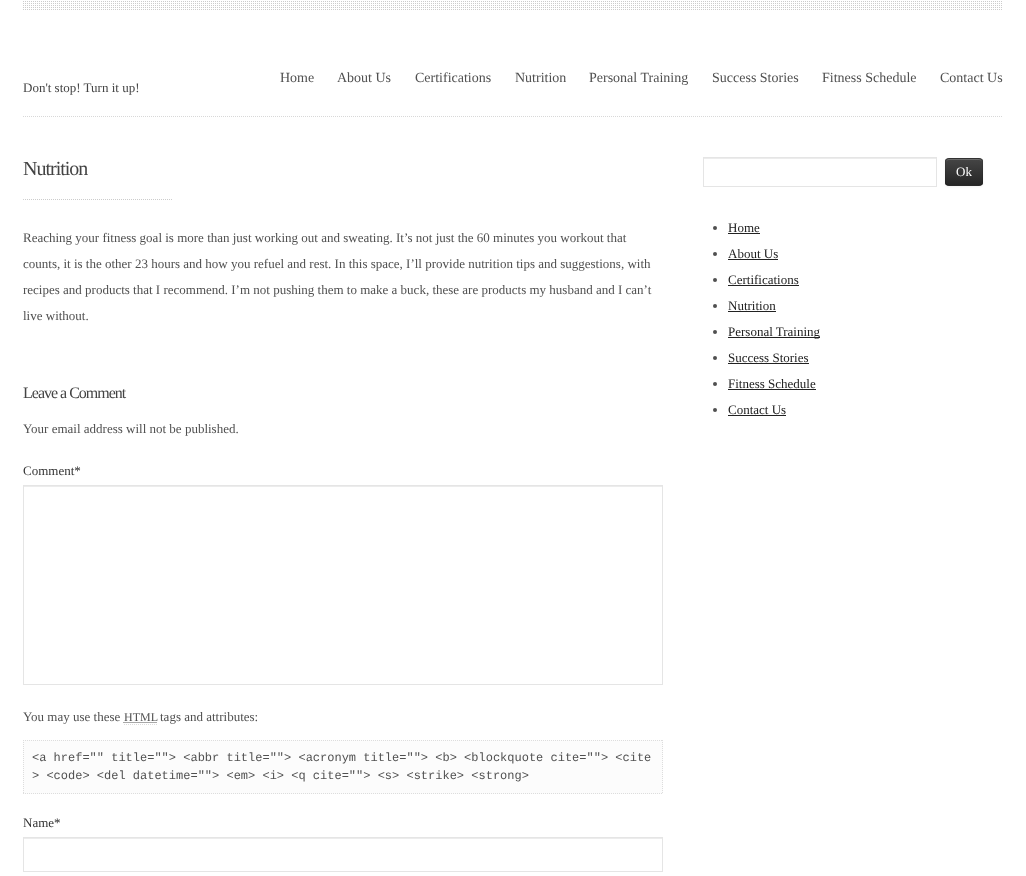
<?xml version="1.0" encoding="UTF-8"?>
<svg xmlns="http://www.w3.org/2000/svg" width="1026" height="876">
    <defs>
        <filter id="blur1" x="-50%" y="-200%" width="200%" height="500%"><feGaussianBlur stdDeviation="1"/></filter>
        <clipPath id="clip1"><rect x="945" y="158" width="38" height="28" rx="4"/></clipPath>
        <linearGradient id="g1" gradientUnits="userSpaceOnUse" x1="964" y1="159" x2="964" y2="185"><stop offset="0" stop-color="#454545"/><stop offset="1" stop-color="#262626"/></linearGradient>
    </defs>
    <rect width="100%" height="100%" fill="#FFFFFF"/>
    <image x="23" y="1" width="979" height="9" href="img_01.png"/>
    <path d="M 23 116.5 H 1003" fill="none" stroke="#D8D8D8" stroke-dasharray="1 1"/>
    <text x="280" y="82" font-family="Liberation Serif" font-size="14" fill="#505050">Home</text>
    <text x="337" y="82" font-family="Liberation Serif" font-size="14" fill="#505050">About Us</text>
    <text x="415" y="82" font-family="Liberation Serif" font-size="14" fill="#505050">Certifications</text>
    <text x="515" y="82" font-family="Liberation Serif" font-size="14" fill="#505050">Nutrition</text>
    <text x="589" y="82" font-family="Liberation Serif" font-size="14" fill="#505050">Personal Training</text>
    <text x="712" y="82" font-family="Liberation Serif" font-size="14" fill="#505050">Success Stories</text>
    <text x="822" y="82" font-family="Liberation Serif" font-size="14" fill="#505050">Fitness Schedule</text>
    <text x="940" y="82" font-family="Liberation Serif" font-size="14" fill="#505050">Contact Us</text>
    <text x="23" y="92" font-family="Liberation Serif" font-size="13" fill="#444444">Don't stop! Turn it up!</text>
    <image x="23" y="199" width="149" height="1" href="img_02.png"/>
    <text x="23" y="175" font-family="Liberation Serif" font-size="20" letter-spacing="-1" fill="#444444">Nutrition</text>
    <text x="23" y="242" font-family="Liberation Serif" font-size="13" fill="#505050">Reaching your fitness goal is more than just working out and sweating. It’s not just the 60 minutes you workout that</text>
    <text x="23" y="268" font-family="Liberation Serif" font-size="13" fill="#505050">counts, it is the other 23 hours and how you refuel and rest. In this space, I’ll provide nutrition tips and suggestions, with</text>
    <text x="23" y="294" font-family="Liberation Serif" font-size="13" fill="#505050">recipes and products that I recommend. I’m not pushing them to make a buck, these are products my husband and I can’t</text>
    <text x="23" y="320" font-family="Liberation Serif" font-size="13" fill="#505050">live without.</text>
    <text x="23" y="398" font-family="Liberation Serif" font-size="16" letter-spacing="-1" fill="#444444">Leave a Comment</text>
    <text x="23" y="433" font-family="Liberation Serif" font-size="13" fill="#505050">Your email address will not be published.</text>
    <text x="23" y="475" font-family="Liberation Serif" font-size="13" fill="#333333">Comment*</text>
    <rect x="24" y="486" width="638" height="1" fill="#ECECEC"/>
    <rect x="23.5" y="485.5" width="639" height="199" fill="none" stroke="#E5E5E5"/>
    <text x="23" y="721" font-family="Liberation Serif" font-size="13" fill="#505050">You may use these</text>
    <text x="124" y="721" font-family="Liberation Serif" font-size="12" fill="#505050">HTML</text>
    <path d="M 124 724.5 H 157" fill="none" stroke="#DDDDDD" stroke-dasharray="1 1"/>
    <path d="M 123.5 722.5 H 156.5" fill="none" stroke="#505050" stroke-dasharray="1 1"/>
    <text x="160" y="721" font-family="Liberation Serif" font-size="13" fill="#505050">tags and attributes:</text>
    <rect x="23" y="740" width="640" height="54" fill="#FCFCFC"/>
    <path d="M 23 740.5 H 663" fill="none" stroke="#DDDDDD" stroke-dasharray="1 1"/>
    <path d="M 662.5 740 V 794" fill="none" stroke="#DDDDDD" stroke-dasharray="1 1"/>
    <path d="M 23 793.5 H 663" fill="none" stroke="#DDDDDD" stroke-dasharray="1 1"/>
    <path d="M 23.5 740 V 794" fill="none" stroke="#DDDDDD" stroke-dasharray="1 1"/>
    <text font-family="Liberation Mono" font-size="12" fill="#505050">
        <tspan x="32" y="761">&lt;a href="" title=""&gt; &lt;abbr title=""&gt; &lt;acronym title=""&gt; &lt;b&gt; &lt;blockquote cite=""&gt; &lt;cite</tspan>
        <tspan x="32" y="779">&gt; &lt;code&gt; &lt;del datetime=""&gt; &lt;em&gt; &lt;i&gt; &lt;q cite=""&gt; &lt;s&gt; &lt;strike&gt; &lt;strong&gt;</tspan>
    </text>
    <text x="23" y="827" font-family="Liberation Serif" font-size="13" fill="#333333">Name*</text>
    <rect x="24" y="838" width="638" height="1" fill="#ECECEC"/>
    <rect x="23.5" y="837.5" width="639" height="34" fill="none" stroke="#E5E5E5"/>
    <rect x="704" y="158" width="232" height="1" fill="#ECECEC"/>
    <rect x="703.5" y="157.5" width="233" height="29" fill="none" stroke="#E5E5E5"/>
    <rect x="945" y="159" width="38" height="28" rx="4" fill="#000000" fill-opacity="0.05" filter="url(#blur1)"/>
    <rect x="945" y="158" width="38" height="28" rx="4" fill="#393939"/>
    <g clip-path="url(#clip1)">
        <rect x="945" y="159" width="38" height="26" fill="url(#g1)"/>
    </g>
    <path d="M 949 160 H 979 C 981 160 982 161 982 163 C 982 158 978 159 974 159 H 954 C 950 159 946 158 946 163 C 946 161 947 160 949 160 Z" fill="#696969"/>
    <path d="M 981.5 184.5 C 981 185 980 185.5 979 185.5 H 949 C 948 185.5 947 185 946.5 184.5" fill="none" stroke="#000000" stroke-opacity="0.25"/>
    <path d="M 946.5 184.5 C 946 184 945.5 183 945.5 182 V 162 C 945.5 161 946 160 946.5 159.5 C 947 159 948 158.5 949 158.5 H 979 C 980 158.5 981 159 981.5 159.5 C 982 160 982.5 161 982.5 162 V 182 C 982.5 183 982 184 981.5 184.5" fill="none" stroke="#000000" stroke-opacity="0.1"/>
    <text x="956" y="176" font-family="Liberation Serif" font-size="13" fill="#FFFFFF">Ok</text>
    <circle cx="715" cy="228" r="2" fill="#505050"/>
    <text x="728" y="232" font-family="Liberation Serif" font-size="13" fill="#222222">Home</text>
    <rect x="728" y="233" width="32" height="1" fill="#222222"/>
    <circle cx="715" cy="254" r="2" fill="#505050"/>
    <text x="728" y="258" font-family="Liberation Serif" font-size="13" fill="#222222">About Us</text>
    <rect x="728" y="259" width="50" height="1" fill="#222222"/>
    <circle cx="715" cy="280" r="2" fill="#505050"/>
    <text x="728" y="284" font-family="Liberation Serif" font-size="13" fill="#222222">Certifications</text>
    <rect x="728" y="285" width="71" height="1" fill="#222222"/>
    <circle cx="715" cy="306" r="2" fill="#505050"/>
    <text x="728" y="310" font-family="Liberation Serif" font-size="13" fill="#222222">Nutrition</text>
    <rect x="728" y="311" width="48" height="1" fill="#222222"/>
    <circle cx="715" cy="332" r="2" fill="#505050"/>
    <rect x="728" y="337" width="92" height="1" fill="#222222"/>
    <text x="728" y="336" font-family="Liberation Serif" font-size="13" fill="#222222">Personal Training</text>
    <circle cx="715" cy="358" r="2" fill="#505050"/>
    <text x="728" y="362" font-family="Liberation Serif" font-size="13" fill="#222222">Success Stories</text>
    <rect x="728" y="363" width="81" height="1" fill="#222222"/>
    <circle cx="715" cy="384" r="2" fill="#505050"/>
    <text x="728" y="388" font-family="Liberation Serif" font-size="13" fill="#222222">Fitness Schedule</text>
    <rect x="728" y="389" width="88" height="1" fill="#222222"/>
    <circle cx="715" cy="410" r="2" fill="#505050"/>
    <text x="728" y="414" font-family="Liberation Serif" font-size="13" fill="#222222">Contact Us</text>
    <rect x="728" y="415" width="58" height="1" fill="#222222"/>
</svg>
